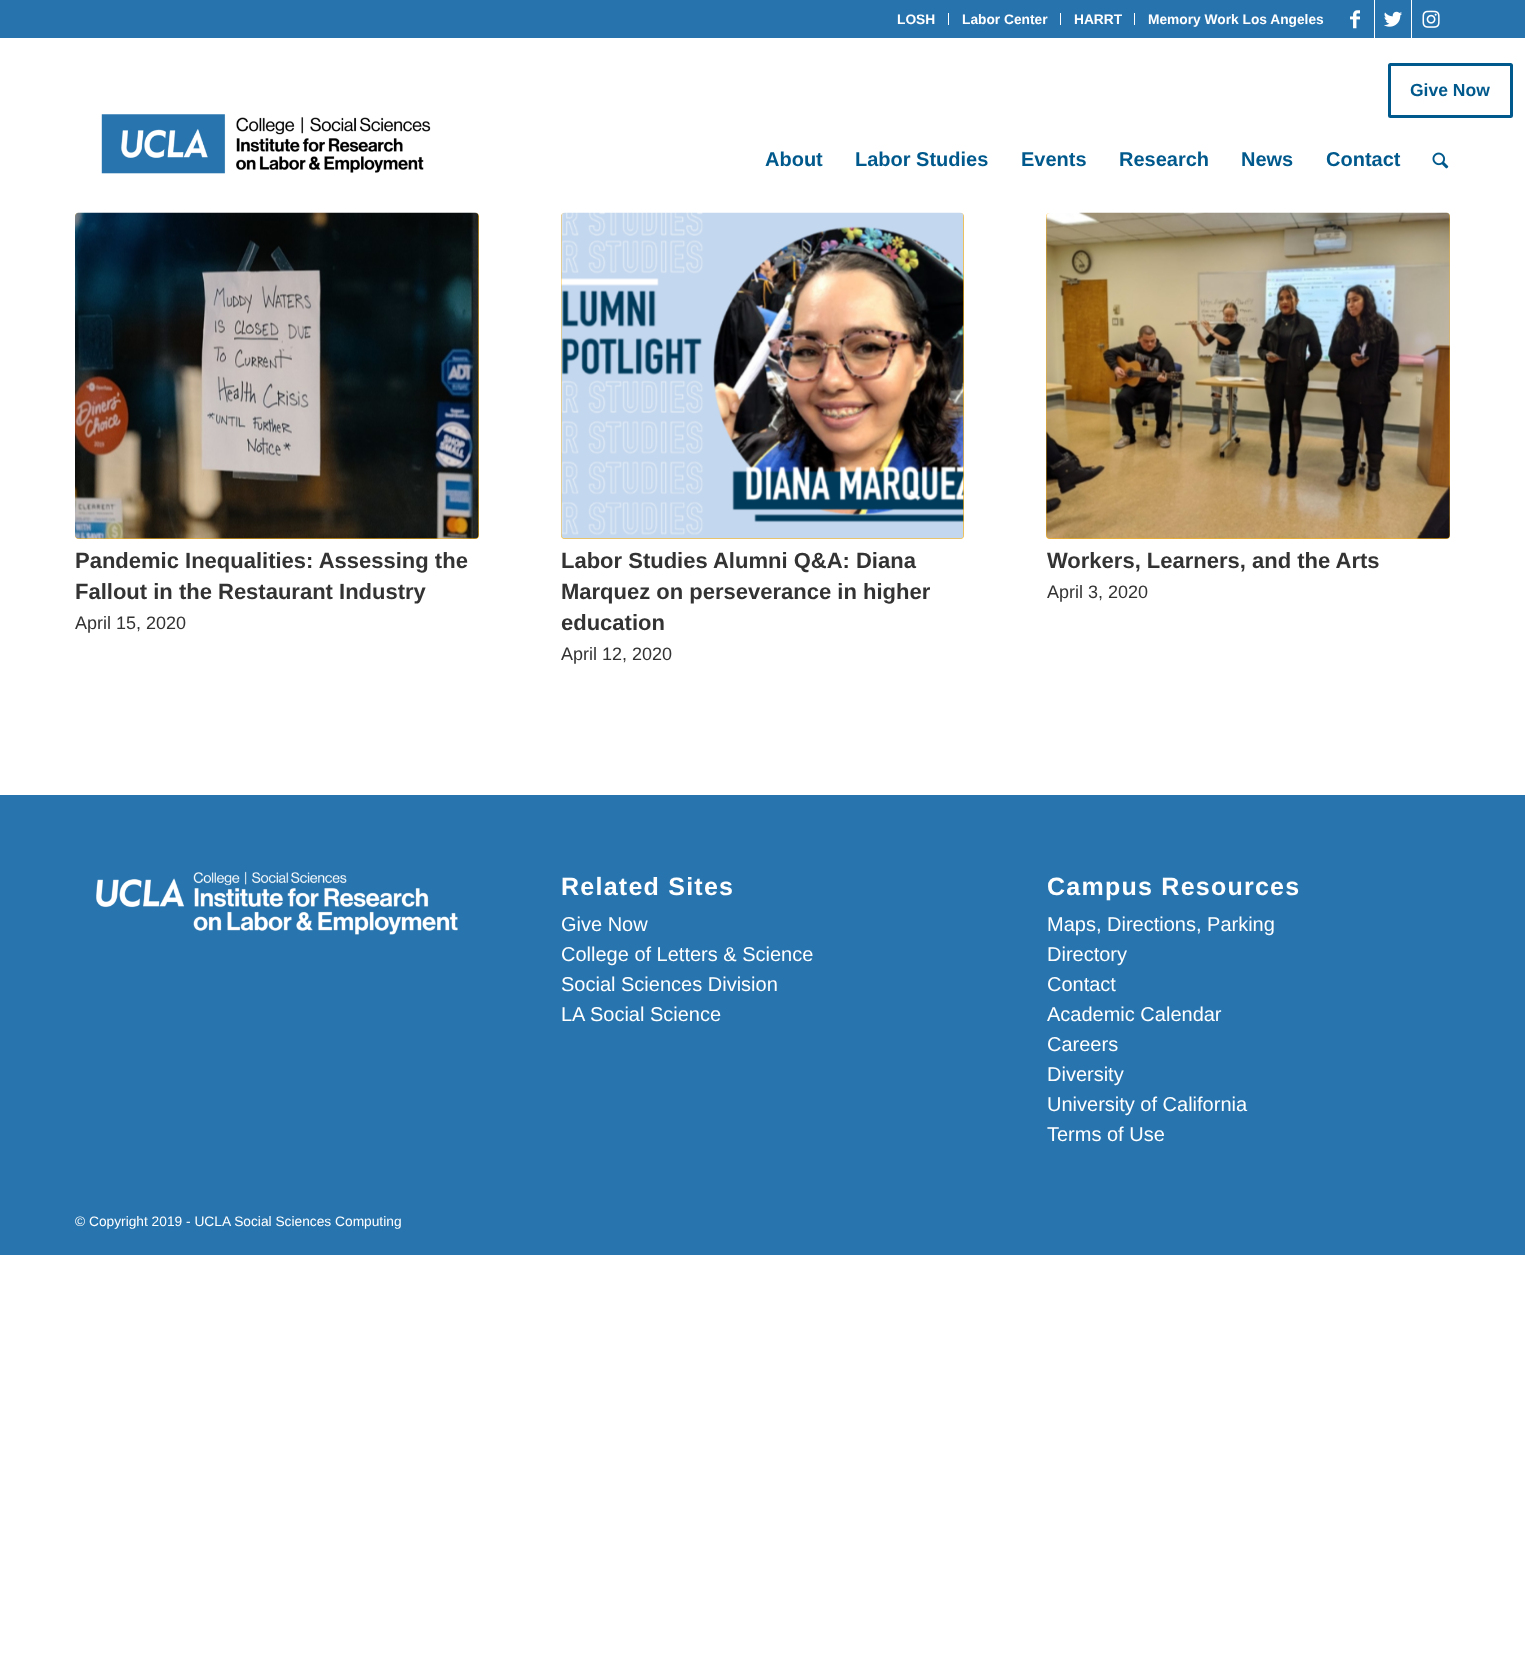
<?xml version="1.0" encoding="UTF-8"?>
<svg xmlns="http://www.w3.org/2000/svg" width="1525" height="1655">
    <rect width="100%" height="100%" fill="#FFFFFF"/>
    <rect x="0" y="0" width="1525" height="38" fill="#2773AE"/>
    <rect x="948" y="13" width="1" height="12" fill="#FFFFFF"/>
    <text x="897" y="24" font-family="Liberation Sans" font-size="13.75" font-weight="700" fill="#FFFFFF">LOSH</text>
    <rect x="1060" y="13" width="1" height="12" fill="#FFFFFF"/>
    <text x="962" y="24" font-family="Liberation Sans" font-size="13.75" font-weight="700" fill="#FFFFFF">Labor Center</text>
    <rect x="1134" y="13" width="1" height="12" fill="#FFFFFF"/>
    <text x="1074" y="24" font-family="Liberation Sans" font-size="13.75" font-weight="700" fill="#FFFFFF">HARRT</text>
    <text x="1148" y="24" font-family="Liberation Sans" font-size="13.75" font-weight="700" fill="#FFFFFF">Memory Work Los Angeles</text>
    <rect x="1374" y="0" width="1" height="38" fill="#FFFFFF"/>
    <image x="1350" y="10" width="10" height="19" href="img_01.png"/>
    <rect x="1411" y="0" width="1" height="38" fill="#FFFFFF"/>
    <image x="1384" y="11" width="18" height="16" href="img_02.png"/>
    <image x="1422" y="10" width="18" height="18" href="img_03.png"/>
    <rect x="1389.5" y="64.5" width="122" height="52" rx="1" fill="none" stroke="#00598C" stroke-width="3"/>
    <text x="1410" y="96" font-family="Liberation Sans" font-size="17.5" font-weight="700" fill="#00598C">Give Now</text>
    <image x="101" y="114" width="330" height="60" href="img_04.png"/>
    <text x="765" y="166" font-family="Liberation Sans" font-size="20" font-weight="700" fill="#00598C">About</text>
    <text x="855" y="166" font-family="Liberation Sans" font-size="20" font-weight="700" fill="#00598C">Labor Studies</text>
    <text x="1021" y="166" font-family="Liberation Sans" font-size="20" font-weight="700" fill="#00598C">Events</text>
    <text x="1119" y="166" font-family="Liberation Sans" font-size="20" font-weight="700" fill="#00598C">Research</text>
    <text x="1241" y="166" font-family="Liberation Sans" font-size="20" font-weight="700" fill="#00598C">News</text>
    <text x="1326" y="166" font-family="Liberation Sans" font-size="20" font-weight="700" fill="#00598C">Contact</text>
    <image x="1432" y="152" width="17" height="17" href="img_05.png"/>
    <rect x="75" y="213" width="404" height="326" rx="4" fill="#FFB71C"/>
    <image x="75" y="212" width="404" height="327" href="img_06.png"/>
    <text font-family="Liberation Sans" font-size="22" font-weight="700" fill="#333333">
        <tspan x="75" y="568">Pandemic Inequalities: Assessing the</tspan>
        <tspan x="75" y="599">Fallout in the Restaurant Industry</tspan>
    </text>
    <text x="75" y="629" font-family="Liberation Sans" font-size="18" fill="#333333">April 15, 2020</text>
    <rect x="561" y="213" width="403" height="326" rx="4" fill="#FFB71C"/>
    <image x="561" y="212" width="403" height="327" href="img_07.png"/>
    <text font-family="Liberation Sans" font-size="22" font-weight="700" fill="#333333">
        <tspan x="561" y="568">Labor Studies Alumni Q&amp;A: Diana</tspan>
        <tspan x="561" y="599">Marquez on perseverance in higher</tspan>
        <tspan x="561" y="630">education</tspan>
    </text>
    <text x="561" y="660" font-family="Liberation Sans" font-size="18" fill="#333333">April 12, 2020</text>
    <rect x="1046" y="213" width="404" height="326" rx="4" fill="#FFB71C"/>
    <image x="1046" y="212" width="404" height="327" href="img_08.png"/>
    <text x="1047" y="568" font-family="Liberation Sans" font-size="22" font-weight="700" fill="#333333">Workers, Learners, and the Arts</text>
    <text x="1047" y="598" font-family="Liberation Sans" font-size="18" fill="#333333">April 3, 2020</text>
    <rect x="0" y="795" width="1525" height="460" fill="#2774AE"/>
    <image x="96" y="871" width="362" height="64" href="img_09.png"/>
    <text x="561" y="895" font-family="Liberation Sans" font-size="25" font-weight="700" letter-spacing="1.25" fill="#FFFFFF">Related Sites</text>
    <text font-family="Liberation Sans" font-size="20" fill="#FFFFFF">
        <tspan x="561" y="931">Give Now</tspan>
        <tspan x="561" y="961">College of Letters &amp; Science</tspan>
        <tspan x="561" y="991">Social Sciences Division</tspan>
        <tspan x="561" y="1021">LA Social Science</tspan>
    </text>
    <text x="1047" y="895" font-family="Liberation Sans" font-size="25" font-weight="700" letter-spacing="1.25" fill="#FFFFFF">Campus Resources</text>
    <text font-family="Liberation Sans" font-size="20" fill="#FFFFFF">
        <tspan x="1047" y="931">Maps, Directions, Parking</tspan>
        <tspan x="1047" y="961">Directory</tspan>
        <tspan x="1047" y="991">Contact</tspan>
        <tspan x="1047" y="1021">Academic Calendar</tspan>
        <tspan x="1047" y="1051">Careers</tspan>
        <tspan x="1047" y="1081">Diversity</tspan>
        <tspan x="1047" y="1111">University of California</tspan>
        <tspan x="1047" y="1141">Terms of Use</tspan>
    </text>
    <text x="75" y="1226" font-family="Liberation Sans" font-size="13.75" fill="#FFFFFF">© Copyright 2019 - UCLA Social Sciences Computing</text>
</svg>
